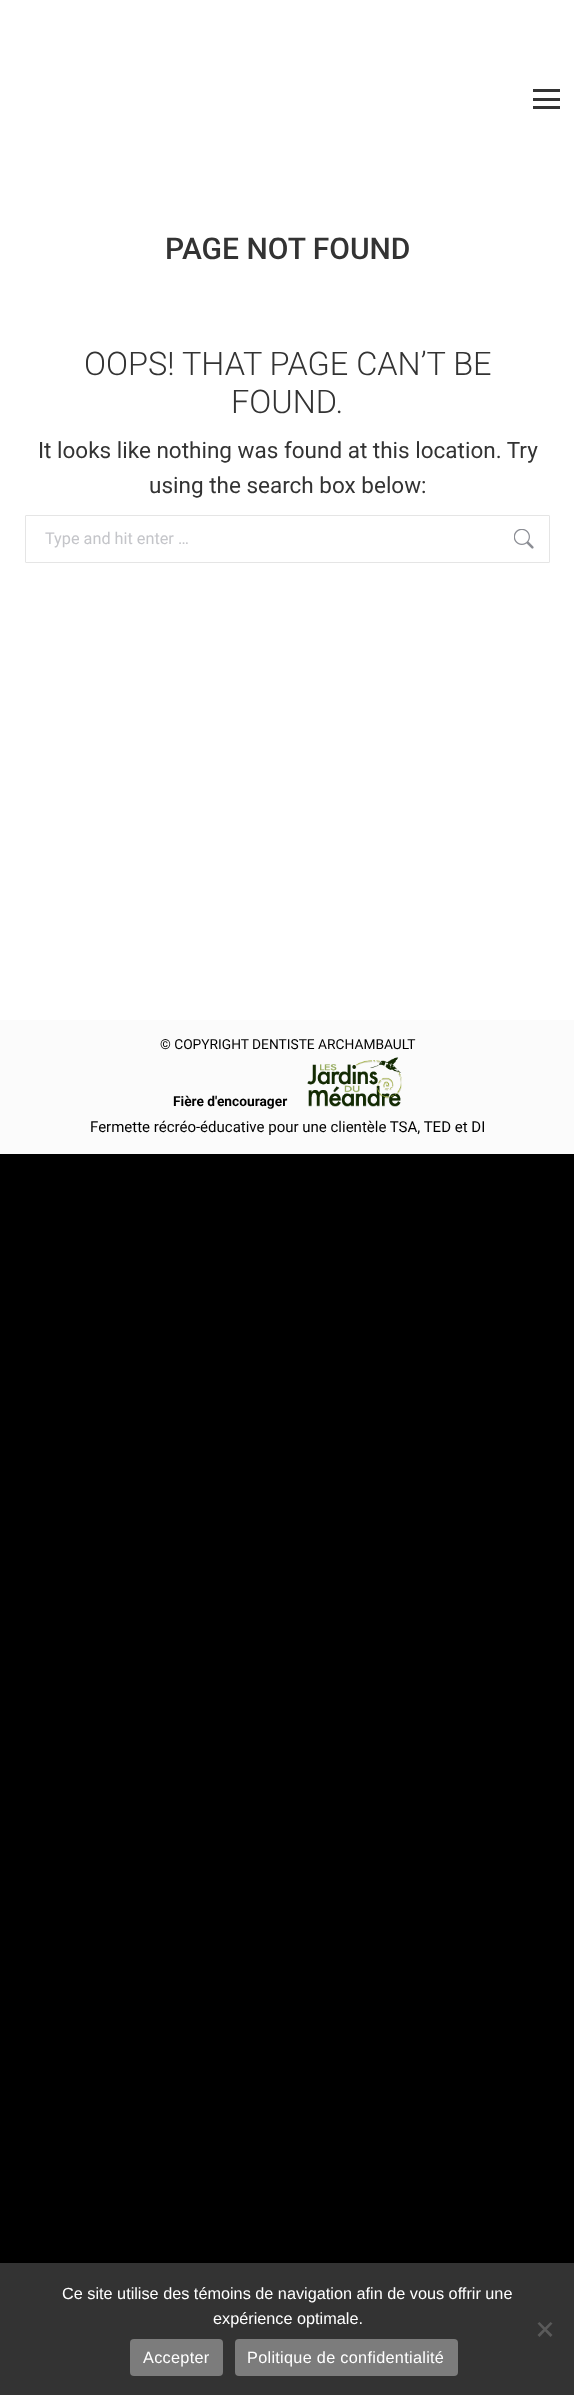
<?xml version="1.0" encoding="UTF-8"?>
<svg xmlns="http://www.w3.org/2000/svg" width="574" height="2395">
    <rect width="100%" height="100%" fill="#000000"/>
    <rect x="0" y="0" width="574" height="1020" fill="#FFFFFF"/>
    <rect x="533" y="89" width="27" height="3" fill="#333333"/>
    <rect x="533" y="98" width="27" height="3" fill="#333333"/>
    <rect x="533" y="106" width="27" height="3" fill="#333333"/>
    <text x="165" y="259" font-family="Roboto" font-size="30" font-weight="500" fill="#333333">PAGE NOT FOUND</text>
    <text x="84" y="375" font-family="Roboto" font-size="32.5" font-weight="300" fill="#333333">OOPS! THAT PAGE CAN’T BE</text>
    <text x="231" y="413" font-family="Roboto" font-size="32.5" font-weight="300" fill="#333333">FOUND.</text>
    <text x="38" y="458" font-family="Roboto" font-size="22.5" fill="#333333">It looks like nothing was found at this location. Try</text>
    <text x="149" y="493" font-family="Roboto" font-size="22.5" fill="#333333">using the search box below:</text>
    <rect x="25.5" y="515.5" width="524" height="47" rx="0.5" fill="none" stroke="#E5E5E5"/>
    <text x="45" y="544" font-family="Roboto" font-size="16.25" fill="#C4C5C9">Type and hit enter …</text>
    <image x="514" y="529" width="20" height="20" href="img_01.png"/>
    <rect x="0" y="1020" width="574" height="134" fill="#FBFBFB"/>
    <text x="160" y="1049" font-family="Roboto" font-size="13.75" fill="#000000">© COPYRIGHT DENTISTE ARCHAMBAULT</text>
    <text x="173" y="1106" font-family="Roboto" font-size="13.75" font-weight="700" fill="#000000">Fière d'encourager</text>
    <image x="307" y="1057" width="95" height="50" href="img_02.png"/>
    <text x="90" y="1132" font-family="Roboto" font-size="15" fill="#000000">Fermette récréo-éducative pour une clientèle TSA, TED et DI</text>
    <rect x="0" y="2263" width="574" height="132" fill="#333333"/>
    <text x="62" y="2299" font-family="Liberation Sans" font-size="16.25" fill="#FFFFFF">Ce site utilise des témoins de navigation afin de vous offrir une</text>
    <text x="213" y="2324" font-family="Liberation Sans" font-size="16.25" fill="#FFFFFF">expérience optimale.</text>
    <path d="M 550.5 2322 L 552.5 2323.5 L 539.5 2337 L 537.5 2335 Z" fill="#5A5A5A"/>
    <path d="M 537.5 2323.5 L 539.5 2322 L 552.5 2335 L 550.5 2337 Z" fill="#5A5A5A"/>
    <rect x="130" y="2339" width="93" height="37" rx="4" fill="#7C7C7C"/>
    <text x="143" y="2363" font-family="Liberation Sans" font-size="16.25" letter-spacing="0.3" fill="#FFFFFF">Accepter</text>
    <rect x="235" y="2339" width="223" height="37" rx="4" fill="#7C7C7C"/>
    <text x="247" y="2363" font-family="Liberation Sans" font-size="16.25" letter-spacing="0.3" fill="#FFFFFF">Politique de confidentialité</text>
</svg>
